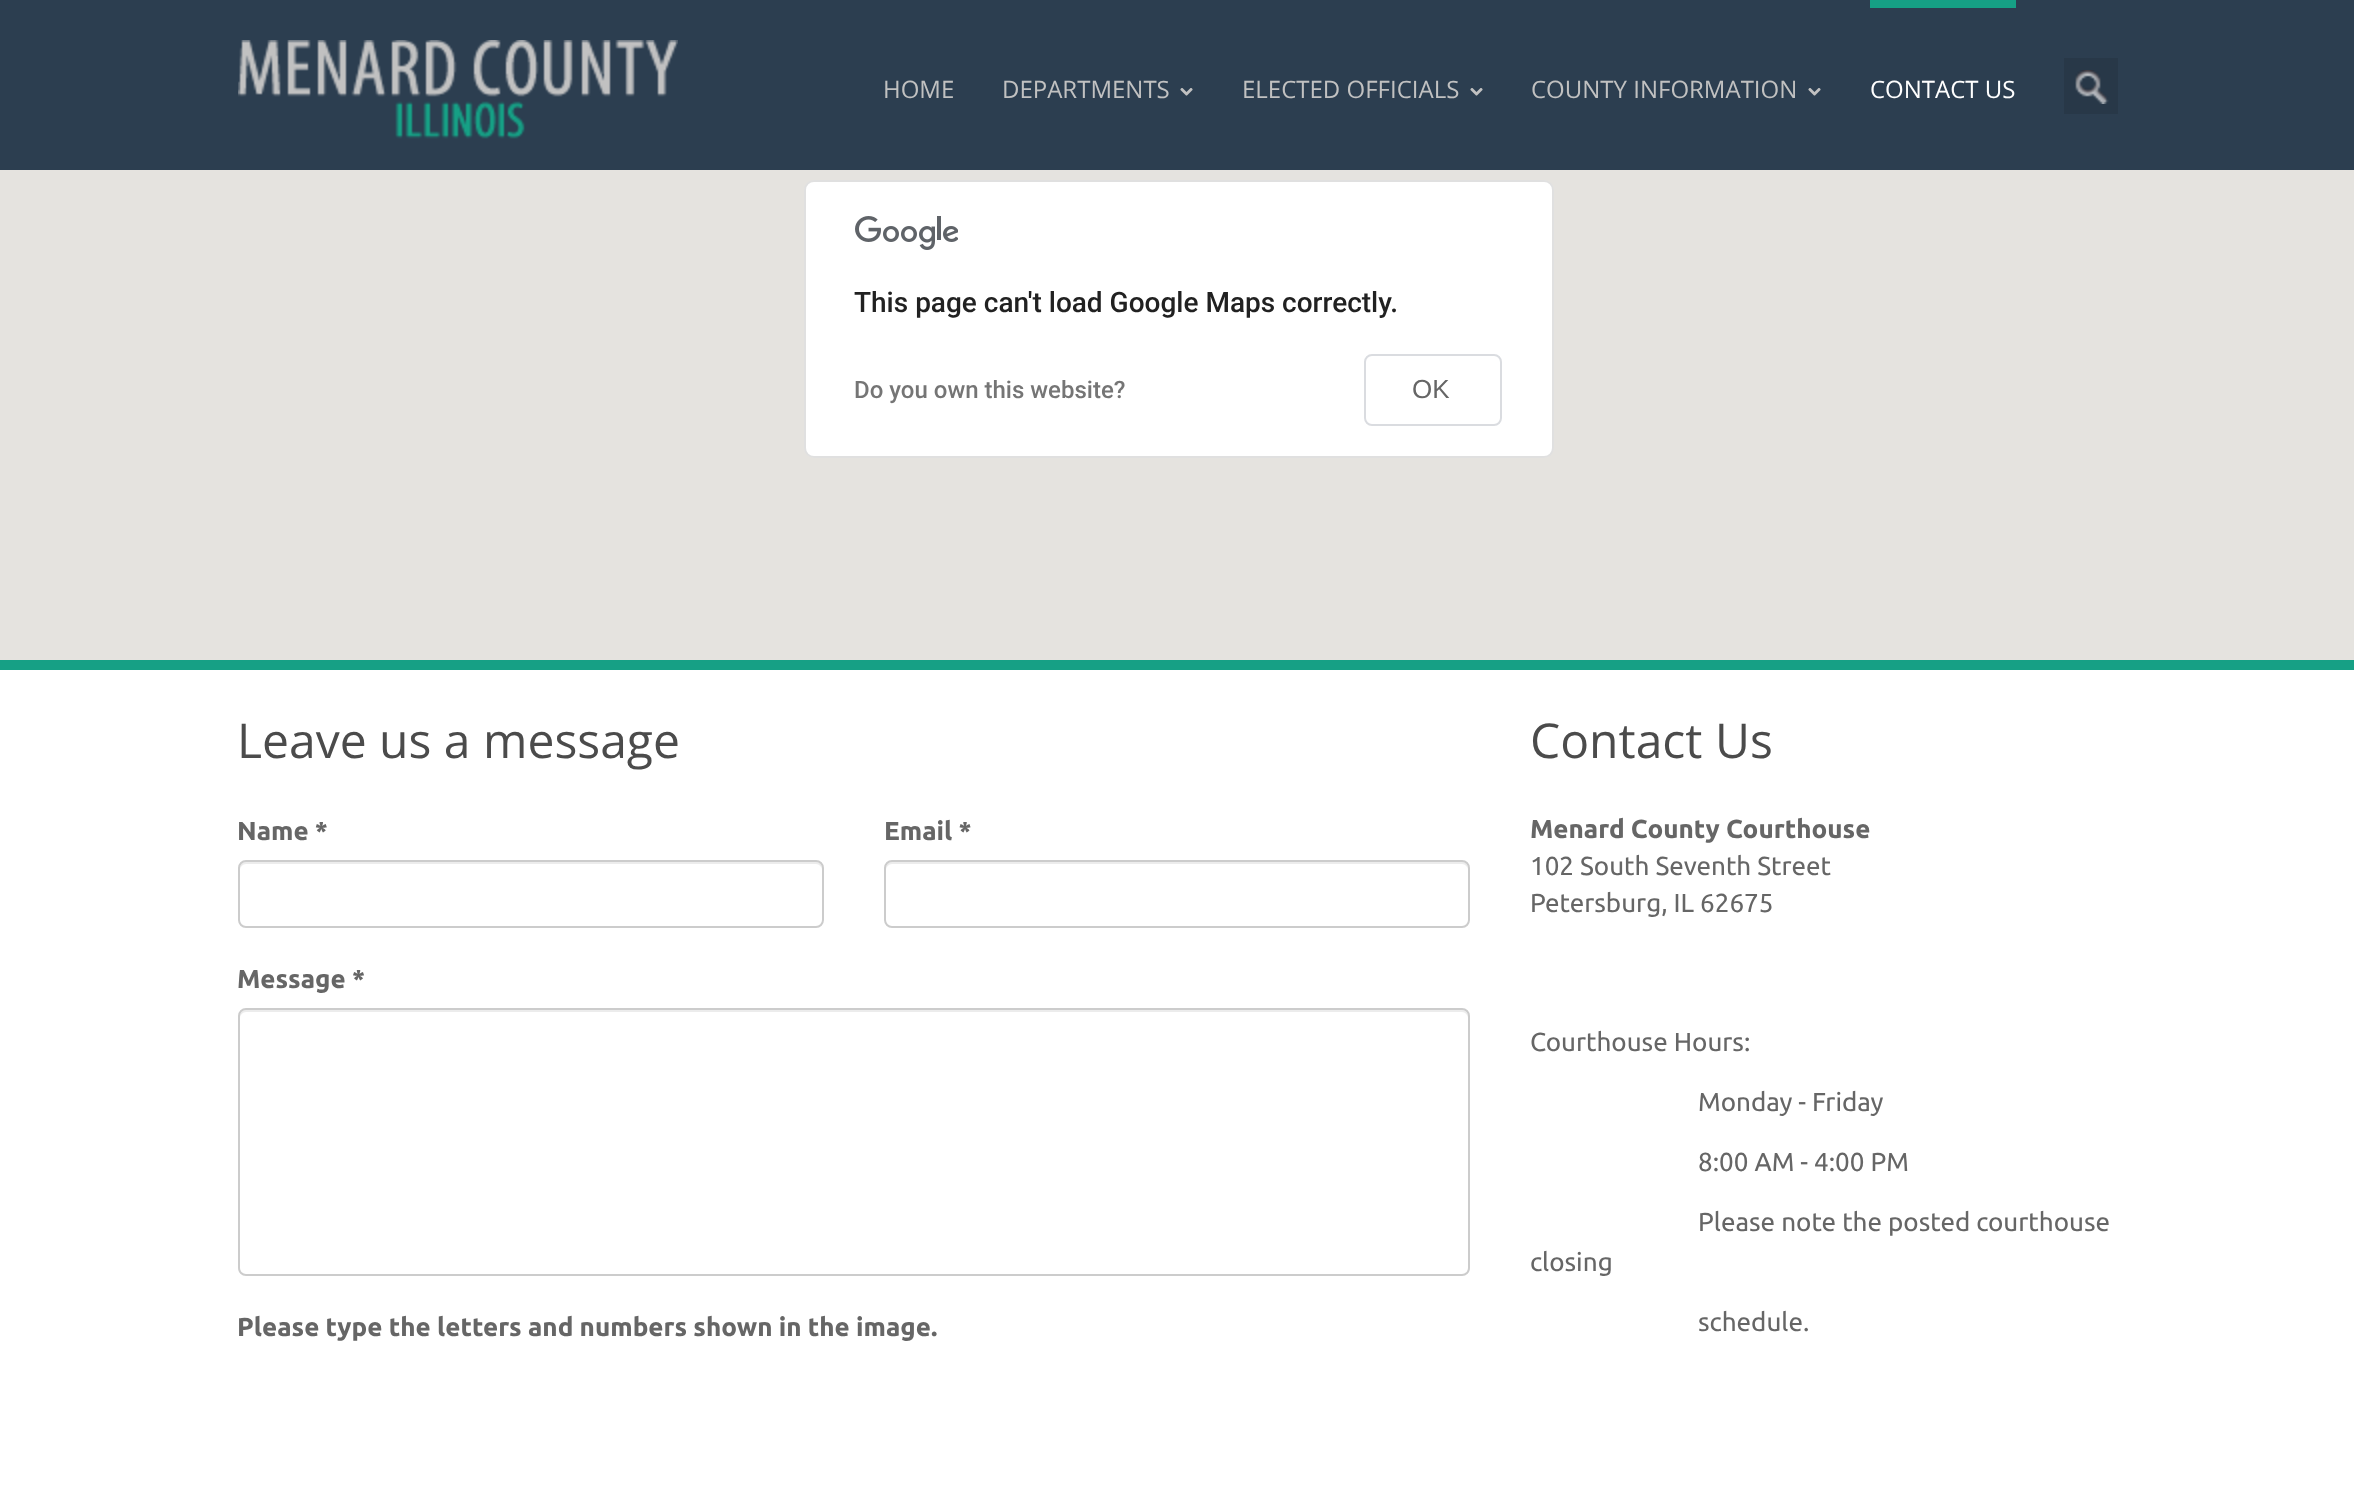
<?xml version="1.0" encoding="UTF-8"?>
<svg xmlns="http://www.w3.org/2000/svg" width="2354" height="1504">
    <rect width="100%" height="100%" fill="#FFFFFF"/>
    <rect x="0" y="0" width="2354" height="170" fill="#2C3E50"/>
    <image x="238" y="40" width="440" height="99" href="img_01.png"/>
    <text x="883" y="98" font-family="Open Sans" font-size="24" fill="#C1C1C1">HOME</text>
    <text x="1002" y="98" font-family="Open Sans" font-size="24" fill="#C1C1C1">DEPARTMENTS</text>
    <image x="1180" y="88" width="13" height="8" href="img_02.png"/>
    <text x="1242" y="98" font-family="Open Sans" font-size="24" fill="#C1C1C1">ELECTED OFFICIALS</text>
    <image x="1470" y="88" width="13" height="8" href="img_02.png"/>
    <text x="1531" y="98" font-family="Open Sans" font-size="24" fill="#C1C1C1">COUNTY INFORMATION</text>
    <image x="1808" y="88" width="13" height="8" href="img_02.png"/>
    <rect x="1870" y="0" width="146" height="8" fill="#16A085"/>
    <text x="1870" y="98" font-family="Open Sans" font-size="24" fill="#FFFFFF">CONTACT US</text>
    <rect x="2064" y="58" width="54" height="56" fill="#283848"/>
    <image x="2075" y="70" width="34" height="34" href="img_03.png"/>
    <rect x="0" y="660" width="2354" height="10" fill="#16A085"/>
    <rect x="0" y="170" width="2354" height="490" fill="#E5E3DF"/>
    <rect x="804" y="180" width="750" height="278" rx="10" fill="#FFFFFF"/>
    <rect x="805" y="181" width="748" height="276" rx="9" fill="none" stroke="#000000" stroke-opacity="0.12" stroke-width="2"/>
    <image x="855" y="216" width="103" height="34" href="img_04.png"/>
    <text x="854" y="312" font-family="Roboto" font-size="28" font-weight="500" fill="#212121">This page can't load Google Maps correctly.</text>
    <text x="854" y="398" font-family="Roboto" font-size="24" font-weight="500" fill="#757575">Do you own this website?</text>
    <rect x="1365" y="355" width="136" height="70" rx="7" fill="none" stroke="#DADCE0" stroke-width="2"/>
    <text x="1412" y="398" font-family="Liberation Sans" font-size="26" fill="#666666">OK</text>
    <text x="237" y="758" font-family="Open Sans" font-size="48" fill="#4B4B4B">Leave us a message</text>
    <text x="237" y="840" font-family="Ubuntu" font-size="26" font-weight="700" fill="#666666">Name *</text>
    <path d="M 246 864 H 816 C 819 864 822 867 822 870 C 822 866 821 862 816 862 H 246 C 241 862 240 866 240 870 C 240 867 243 864 246 864 Z" fill="#ECECEC"/>
    <rect x="239" y="861" width="584" height="66" rx="7" fill="none" stroke="#CCCCCC" stroke-width="2"/>
    <text x="884" y="840" font-family="Ubuntu" font-size="26" font-weight="700" fill="#666666">Email *</text>
    <path d="M 892 864 H 1462 C 1465 864 1468 867 1468 870 C 1468 866 1467 862 1462 862 H 892 C 887 862 886 866 886 870 C 886 867 889 864 892 864 Z" fill="#ECECEC"/>
    <rect x="885" y="861" width="584" height="66" rx="7" fill="none" stroke="#CCCCCC" stroke-width="2"/>
    <text x="237" y="988" font-family="Ubuntu" font-size="26" font-weight="700" fill="#666666">Message *</text>
    <path d="M 246 1012 H 1462 C 1465 1012 1468 1015 1468 1018 V 1016 C 1468 1013 1465 1010 1462 1010 H 246 C 243 1010 240 1013 240 1016 V 1018 C 240 1015 243 1012 246 1012 Z" fill="#ECECEC"/>
    <rect x="239" y="1009" width="1230" height="266" rx="7" fill="none" stroke="#CCCCCC" stroke-width="2"/>
    <text x="237" y="1336" font-family="Ubuntu" font-size="26" font-weight="700" fill="#666666">Please type the letters and numbers shown in the image.</text>
    <text x="1530" y="758" font-family="Open Sans" font-size="48" fill="#4B4B4B">Contact Us</text>
    <text x="1530" y="838" font-family="Ubuntu" font-size="26" font-weight="700" fill="#666666">Menard County Courthouse</text>
    <text font-family="Ubuntu" font-size="26" fill="#666666">
        <tspan x="1530" y="875">102 South Seventh Street</tspan>
        <tspan x="1530" y="912">Petersburg, IL 62675</tspan>
    </text>
    <text x="1530" y="1051" font-family="Ubuntu" font-size="26" fill="#666666">Courthouse Hours:</text>
    <text x="1698" y="1111" font-family="Ubuntu" font-size="26" fill="#666666">Monday - Friday</text>
    <text x="1698" y="1171" font-family="Ubuntu" font-size="26" fill="#666666">8:00 AM - 4:00 PM</text>
    <text x="1698" y="1231" font-family="Ubuntu" font-size="26" fill="#666666">Please note the posted courthouse</text>
    <text x="1530" y="1271" font-family="Ubuntu" font-size="26" fill="#666666">closing</text>
    <text x="1698" y="1331" font-family="Ubuntu" font-size="26" fill="#666666">schedule.</text>
</svg>
